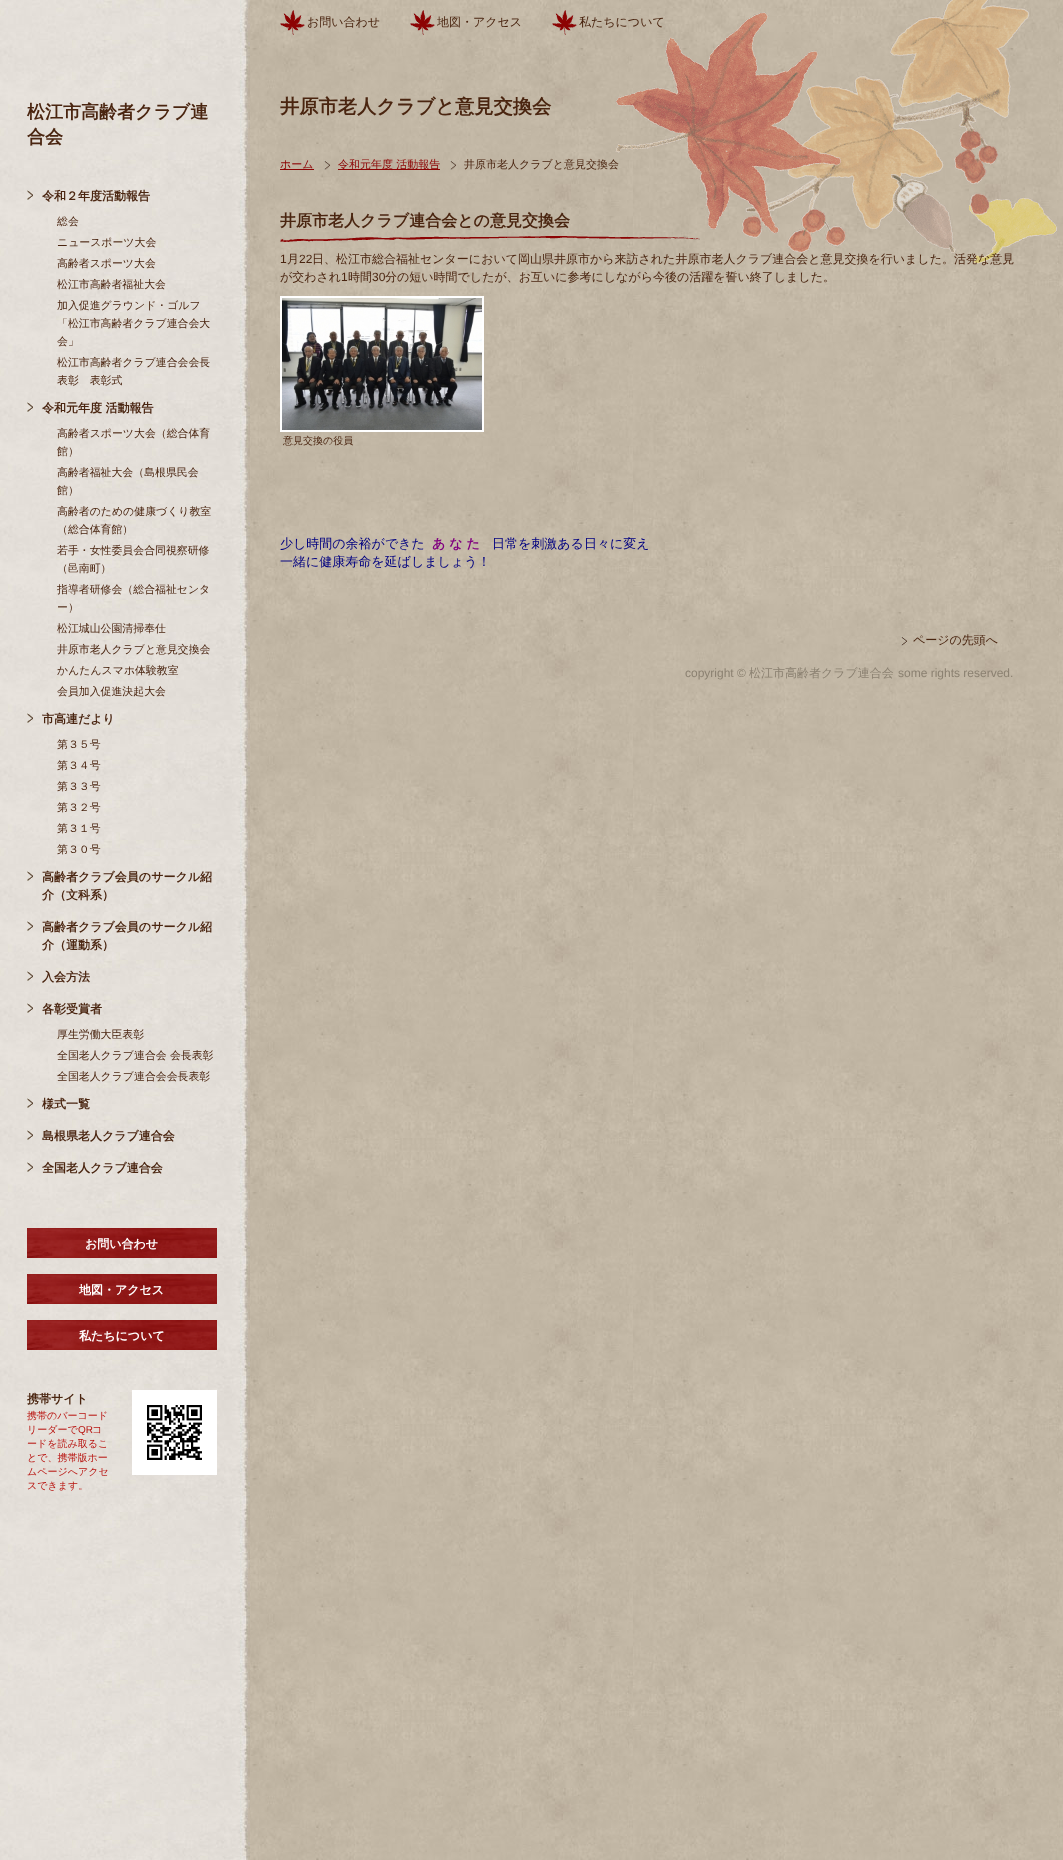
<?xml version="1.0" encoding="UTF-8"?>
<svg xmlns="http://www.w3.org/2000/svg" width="1063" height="1860">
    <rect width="100%" height="100%" fill="#FFFFFF"/>
    <image x="0" y="0" width="1063" height="1860" href="img_01.png"/>
    <text font-family="WenQuanYi Zen Hei" font-size="18" font-weight="700" fill="#4A2510">
        <tspan x="27" y="118">松江市高齢者クラブ連</tspan>
        <tspan x="27" y="143">合会</tspan>
    </text>
    <image x="27" y="190" width="6" height="10" href="img_02.png"/>
    <text x="42" y="200" font-family="WenQuanYi Zen Hei" font-size="12" font-weight="700" fill="#4A2510">令和２年度活動報告</text>
    <text font-family="WenQuanYi Zen Hei" font-size="10.9" font-weight="500" fill="#4A2510">
        <tspan x="57" y="225">総会</tspan>
        <tspan x="57" y="246">ニュースポーツ大会</tspan>
        <tspan x="57" y="267">高齢者スポーツ大会</tspan>
        <tspan x="57" y="288">松江市高齢者福祉大会</tspan>
        <tspan x="57" y="309">加入促進グラウンド・ゴルフ</tspan>
        <tspan x="57" y="327">「松江市高齢者クラブ連合会大</tspan>
        <tspan x="57" y="345">会」</tspan>
        <tspan x="57" y="366">松江市高齢者クラブ連合会会長</tspan>
        <tspan x="57" y="384">表彰　表彰式</tspan>
    </text>
    <image x="27" y="402" width="6" height="10" href="img_03.png"/>
    <text x="42" y="412" font-family="WenQuanYi Zen Hei" font-size="12" font-weight="700" fill="#4A2510">令和元年度 活動報告</text>
    <text font-family="WenQuanYi Zen Hei" font-size="10.9" font-weight="500" fill="#4A2510">
        <tspan x="57" y="437">高齢者スポーツ大会（総合体育</tspan>
        <tspan x="57" y="455">館）</tspan>
        <tspan x="57" y="476">高齢者福祉大会（島根県民会</tspan>
        <tspan x="57" y="494">館）</tspan>
        <tspan x="57" y="515">高齢者のための健康づくり教室</tspan>
        <tspan x="57" y="533">（総合体育館）</tspan>
        <tspan x="57" y="554">若手・女性委員会合同視察研修</tspan>
        <tspan x="57" y="572">（邑南町）</tspan>
        <tspan x="57" y="593">指導者研修会（総合福祉センタ</tspan>
        <tspan x="57" y="611">ー）</tspan>
        <tspan x="57" y="632">松江城山公園清掃奉仕</tspan>
        <tspan x="57" y="653">井原市老人クラブと意見交換会</tspan>
        <tspan x="57" y="674">かんたんスマホ体験教室</tspan>
        <tspan x="57" y="695">会員加入促進決起大会</tspan>
    </text>
    <image x="27" y="713" width="6" height="10" href="img_04.png"/>
    <text x="42" y="723" font-family="WenQuanYi Zen Hei" font-size="12" font-weight="700" fill="#4A2510">市高連だより</text>
    <text font-family="WenQuanYi Zen Hei" font-size="10.9" font-weight="500" fill="#4A2510">
        <tspan x="57" y="748">第３５号</tspan>
        <tspan x="57" y="769">第３４号</tspan>
        <tspan x="57" y="790">第３３号</tspan>
        <tspan x="57" y="811">第３２号</tspan>
        <tspan x="57" y="832">第３１号</tspan>
        <tspan x="57" y="853">第３０号</tspan>
    </text>
    <image x="27" y="871" width="6" height="10" href="img_05.png"/>
    <text font-family="WenQuanYi Zen Hei" font-size="12" font-weight="700" fill="#4A2510">
        <tspan x="42" y="881">高齢者クラブ会員のサークル紹</tspan>
        <tspan x="42" y="899">介（文科系）</tspan>
    </text>
    <image x="27" y="921" width="6" height="10" href="img_06.png"/>
    <text font-family="WenQuanYi Zen Hei" font-size="12" font-weight="700" fill="#4A2510">
        <tspan x="42" y="931">高齢者クラブ会員のサークル紹</tspan>
        <tspan x="42" y="949">介（運動系）</tspan>
    </text>
    <image x="27" y="971" width="6" height="10" href="img_07.png"/>
    <text x="42" y="981" font-family="WenQuanYi Zen Hei" font-size="12" font-weight="700" fill="#4A2510">入会方法</text>
    <image x="27" y="1003" width="6" height="10" href="img_08.png"/>
    <text x="42" y="1013" font-family="WenQuanYi Zen Hei" font-size="12" font-weight="700" fill="#4A2510">各彰受賞者</text>
    <text font-family="WenQuanYi Zen Hei" font-size="10.9" font-weight="500" fill="#4A2510">
        <tspan x="57" y="1038">厚生労働大臣表彰</tspan>
        <tspan x="57" y="1059">全国老人クラブ連合会 会長表彰</tspan>
        <tspan x="57" y="1080">全国老人クラブ連合会会長表彰</tspan>
    </text>
    <image x="27" y="1098" width="6" height="10" href="img_09.png"/>
    <text x="42" y="1108" font-family="WenQuanYi Zen Hei" font-size="12" font-weight="700" fill="#4A2510">様式一覧</text>
    <image x="27" y="1130" width="6" height="10" href="img_10.png"/>
    <text x="42" y="1140" font-family="WenQuanYi Zen Hei" font-size="12" font-weight="700" fill="#4A2510">島根県老人クラブ連合会</text>
    <image x="27" y="1162" width="6" height="10" href="img_11.png"/>
    <text x="42" y="1172" font-family="WenQuanYi Zen Hei" font-size="12" font-weight="700" fill="#4A2510">全国老人クラブ連合会</text>
    <image x="27" y="1228" width="190" height="30" href="img_12.png"/>
    <text x="85" y="1248" font-family="WenQuanYi Zen Hei" font-size="12" font-weight="700" fill="#FFFFFF">お問い合わせ</text>
    <image x="27" y="1274" width="190" height="30" href="img_12.png"/>
    <text x="79" y="1294" font-family="WenQuanYi Zen Hei" font-size="12" font-weight="700" fill="#FFFFFF">地図・アクセス</text>
    <image x="27" y="1320" width="190" height="30" href="img_12.png"/>
    <text x="79" y="1340" font-family="WenQuanYi Zen Hei" font-size="12" font-weight="700" fill="#FFFFFF">私たちについて</text>
    <text x="27" y="1403" font-family="WenQuanYi Zen Hei" font-size="12" font-weight="700" fill="#4A2510">携帯サイト</text>
    <rect x="132" y="1390" width="85" height="85" fill="#FFFFFF"/>
    <image x="147" y="1405" width="55" height="55" href="img_13.png"/>
    <text font-family="WenQuanYi Zen Hei" font-size="10" font-weight="500" fill="#B91511">
        <tspan x="27" y="1419">携帯のバーコード</tspan>
        <tspan x="27" y="1433">リーダーで</tspan>
    </text>
    <text x="78" y="1433" font-family="Liberation Sans" font-size="10" fill="#B91511">QR</text>
    <text x="92" y="1433" font-family="WenQuanYi Zen Hei" font-size="10" font-weight="500" fill="#B91511">コ</text>
    <text font-family="WenQuanYi Zen Hei" font-size="10" font-weight="500" fill="#B91511">
        <tspan x="27" y="1447">ードを読み取るこ</tspan>
        <tspan x="27" y="1461">とで、携帯版ホー</tspan>
        <tspan x="27" y="1475">ムページへアクセ</tspan>
        <tspan x="27" y="1489">スできます。</tspan>
    </text>
    <image x="615" y="0" width="442" height="264" href="img_14.png"/>
    <image x="280" y="10" width="25" height="25" href="img_15.png"/>
    <text x="307" y="26" font-family="WenQuanYi Zen Hei" font-size="12" font-weight="500" fill="#4A2510">お問い合わせ</text>
    <image x="410" y="10" width="25" height="25" href="img_16.png"/>
    <text x="437" y="26" font-family="WenQuanYi Zen Hei" font-size="12" font-weight="500" fill="#4A2510">地図・アクセス</text>
    <image x="552" y="10" width="25" height="25" href="img_17.png"/>
    <text x="579" y="26" font-family="WenQuanYi Zen Hei" font-size="12" font-weight="500" fill="#4A2510">私たちについて</text>
    <text x="280" y="113" font-family="WenQuanYi Zen Hei" font-size="19.25" font-weight="700" fill="#4A2510">井原市老人クラブと意見交換会</text>
    <rect x="280" y="169" width="34" height="1" fill="#8C0303"/>
    <text x="280" y="168" font-family="WenQuanYi Zen Hei" font-size="11" font-weight="500" fill="#8C0303">ホーム</text>
    <image x="324" y="160" width="6" height="10" href="img_18.png"/>
    <rect x="338" y="169" width="102" height="1" fill="#8C0303"/>
    <text x="338" y="168" font-family="WenQuanYi Zen Hei" font-size="11" font-weight="500" fill="#8C0303">令和元年度 活動報告</text>
    <image x="450" y="160" width="6" height="10" href="img_19.png"/>
    <text x="464" y="168" font-family="WenQuanYi Zen Hei" font-size="11" font-weight="500" fill="#4A2510">井原市老人クラブと意見交換会</text>
    <image x="280" y="236" width="420" height="6" href="img_20.png"/>
    <text x="280" y="226" font-family="WenQuanYi Zen Hei" font-size="16" font-weight="700" fill="#4A2510">井原市老人クラブ連合会との意見交換会</text>
    <text x="280" y="263" font-family="Liberation Sans" font-size="12" fill="#4A2510">1</text>
    <text x="287" y="263" font-family="WenQuanYi Zen Hei" font-size="12" font-weight="500" fill="#4A2510">月</text>
    <text x="299" y="263" font-family="Liberation Sans" font-size="12" fill="#4A2510">22</text>
    <text x="312" y="263" font-family="WenQuanYi Zen Hei" font-size="12" font-weight="500" fill="#4A2510">日、松江市総合福祉センターにおいて岡山県井原市から来訪された井原市老人クラブ連合会と意見交換を行いました。活発な意見</text>
    <text x="280" y="281" font-family="WenQuanYi Zen Hei" font-size="12" font-weight="500" fill="#4A2510">が交わされ</text>
    <text x="341" y="281" font-family="Liberation Sans" font-size="12" fill="#4A2510">1</text>
    <text x="348" y="281" font-family="WenQuanYi Zen Hei" font-size="12" font-weight="500" fill="#4A2510">時間</text>
    <text x="372" y="281" font-family="Liberation Sans" font-size="12" fill="#4A2510">30</text>
    <text x="385" y="281" font-family="WenQuanYi Zen Hei" font-size="12" font-weight="500" fill="#4A2510">分の短い時間でしたが、お互いに参考にしながら今後の活躍を誓い終了しました。</text>
    <rect x="281" y="297" width="202" height="134" fill="none" stroke="#FFFFFF" stroke-width="2"/>
    <image x="282" y="298" width="200" height="132" href="img_21.png"/>
    <text x="283" y="444" font-family="WenQuanYi Zen Hei" font-size="10" font-weight="500" fill="#4A2510">意見交換の役員</text>
    <text x="280" y="548" font-family="WenQuanYi Zen Hei" font-size="13" font-weight="500" fill="#000080">少し時間の余裕ができた</text>
    <text x="432" y="548" font-family="WenQuanYi Zen Hei" font-size="13" font-weight="700" fill="#800080">あ な た</text>
    <text x="492" y="548" font-family="WenQuanYi Zen Hei" font-size="13" font-weight="500" fill="#000080">日常を刺激ある日々に変え</text>
    <text x="280" y="566" font-family="WenQuanYi Zen Hei" font-size="13" font-weight="500" fill="#000080">一緒に健康寿命を延ばしましょう！</text>
    <image x="901" y="636" width="6" height="10" href="img_22.png"/>
    <text x="913" y="644" font-family="WenQuanYi Zen Hei" font-size="12" font-weight="500" fill="#4A2510">ページの先頭へ</text>
    <text x="685" y="677" font-family="Liberation Sans" font-size="12" fill="#8B8171">copyright ©</text>
    <text x="749" y="677" font-family="WenQuanYi Zen Hei" font-size="12" font-weight="500" fill="#8B8171">松江市高齢者クラブ連合会</text>
    <text x="898" y="677" font-family="Liberation Sans" font-size="12" fill="#8B8171">some rights reserved.</text>
</svg>
